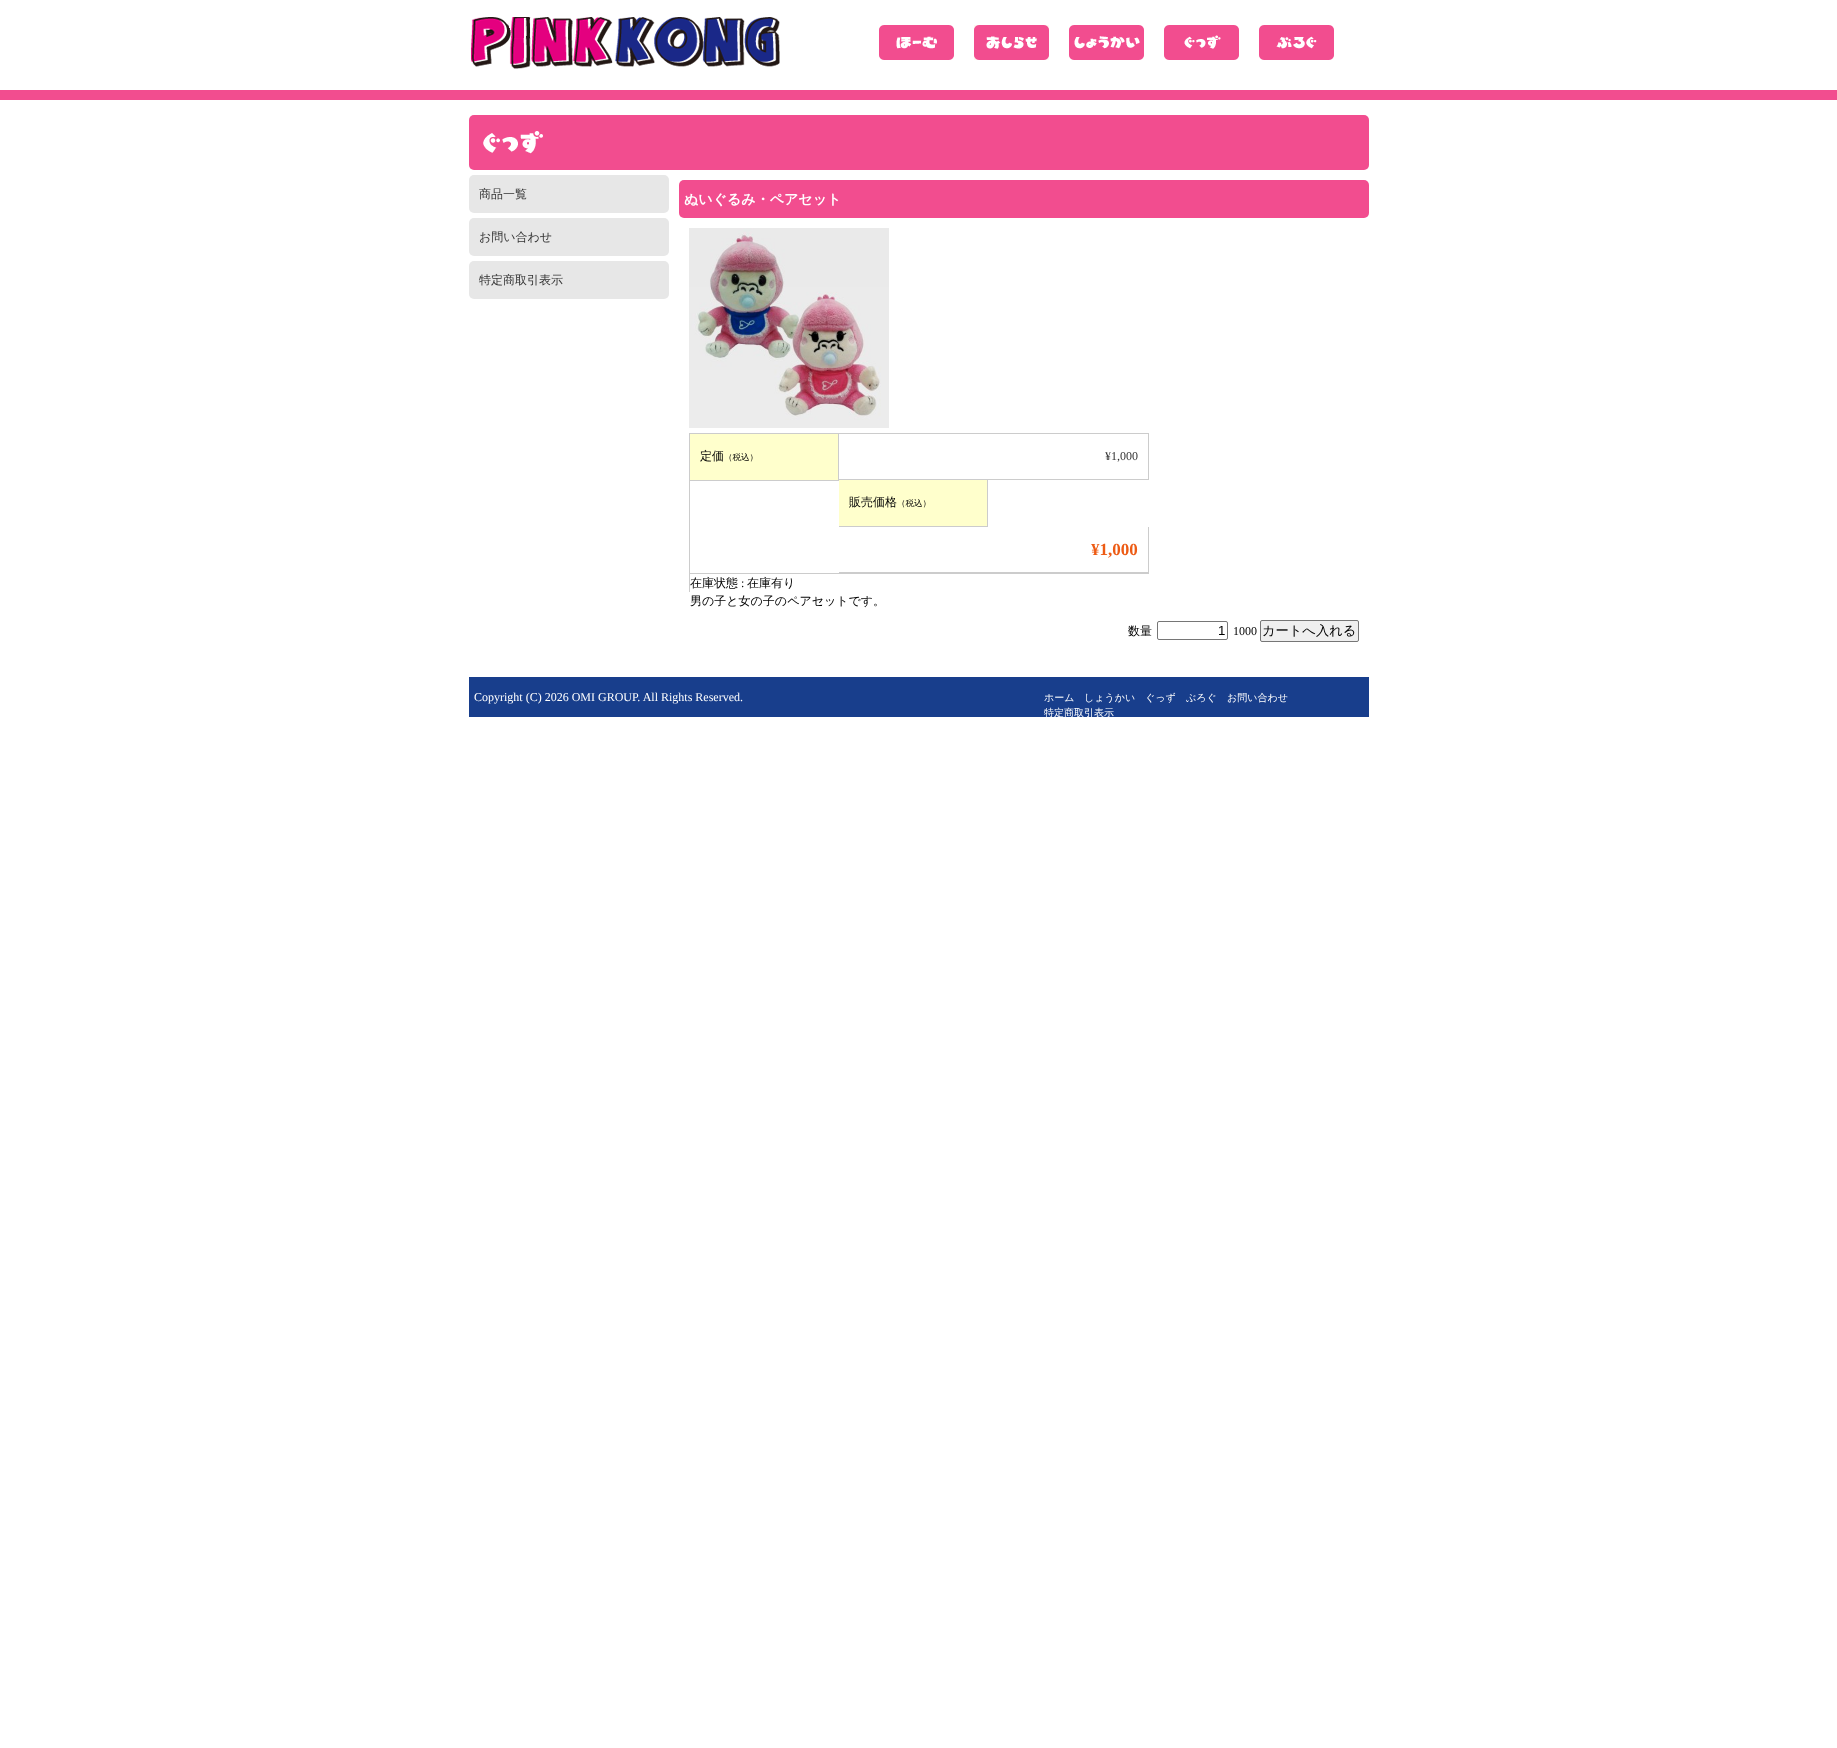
<?xml version="1.0" encoding="UTF-8"?>
<svg xmlns="http://www.w3.org/2000/svg" width="1837" height="1748">
    <rect width="100%" height="100%" fill="#FFFFFF"/>
    <rect x="0" y="90" width="1837" height="10" fill="#F24D8F"/>
    <image x="471" y="17" width="309" height="52" href="img_01.png"/>
    <image x="879" y="25" width="75" height="35" href="img_02.png"/>
    <image x="974" y="25" width="75" height="35" href="img_03.png"/>
    <image x="1069" y="25" width="75" height="35" href="img_04.png"/>
    <image x="1164" y="25" width="75" height="35" href="img_05.png"/>
    <image x="1259" y="25" width="75" height="35" href="img_06.png"/>
    <image x="469" y="115" width="900" height="55" href="img_07.png"/>
    <rect x="469" y="175" width="200" height="38" rx="5" fill="#E7E7E7"/>
    <text x="479" y="198" font-family="WenQuanYi Zen Hei" font-size="12" font-weight="500" fill="#333333">商品一覧</text>
    <rect x="469" y="218" width="200" height="38" rx="5" fill="#E7E7E7"/>
    <text x="479" y="241" font-family="WenQuanYi Zen Hei" font-size="12" font-weight="500" fill="#333333">お問い合わせ</text>
    <rect x="469" y="261" width="200" height="38" rx="5" fill="#E7E7E7"/>
    <text x="479" y="284" font-family="WenQuanYi Zen Hei" font-size="12" font-weight="500" fill="#333333">特定商取引表示</text>
    <rect x="679" y="180" width="690" height="38" rx="5" fill="#F24D8F"/>
    <text x="684" y="204" font-family="WenQuanYi Zen Hei" font-size="14" font-weight="700" fill="#FFFFFF">ぬいぐるみ・ペアセット</text>
    <image x="689" y="228" width="200" height="200" href="img_08.png"/>
    <rect x="689" y="433" width="460" height="1" fill="#CCCCCC"/>
    <rect x="689" y="433" width="1" height="140" fill="#CCCCCC"/>
    <rect x="690" y="434" width="148" height="46" fill="#FFFFCC"/>
    <rect x="838" y="434" width="1" height="47" fill="#CCCCCC"/>
    <rect x="690" y="480" width="149" height="1" fill="#CCCCCC"/>
    <text x="700" y="460" font-family="WenQuanYi Zen Hei" font-size="12" font-weight="500" fill="#000000">定価</text>
    <text x="724" y="460" font-family="WenQuanYi Zen Hei" font-size="8.5" font-weight="500" fill="#000000">（税込）</text>
    <rect x="1148" y="434" width="1" height="46" fill="#CCCCCC"/>
    <rect x="839" y="479" width="310" height="1" fill="#CCCCCC"/>
    <text x="1105" y="460" font-family="Liberation Serif" font-size="12" fill="#333333">¥1,000</text>
    <rect x="839" y="480" width="148" height="46" fill="#FFFFCC"/>
    <rect x="987" y="480" width="1" height="47" fill="#CCCCCC"/>
    <rect x="839" y="526" width="149" height="1" fill="#CCCCCC"/>
    <text x="849" y="506" font-family="WenQuanYi Zen Hei" font-size="12" font-weight="500" fill="#000000">販売価格</text>
    <text x="897" y="506" font-family="WenQuanYi Zen Hei" font-size="8.5" font-weight="500" fill="#000000">（税込）</text>
    <rect x="1148" y="527" width="1" height="46" fill="#CCCCCC"/>
    <rect x="839" y="572" width="310" height="1" fill="#CCCCCC"/>
    <text x="1091" y="555" font-family="Liberation Serif" font-size="17" font-weight="700" fill="#ED5B14">¥1,000</text>
    <rect x="689" y="573" width="460" height="1" fill="#CCCCCC"/>
    <rect x="689" y="573" width="1" height="19" fill="#CCCCCC"/>
    <text x="690" y="587" font-family="WenQuanYi Zen Hei" font-size="12" font-weight="500" fill="#000000">在庫状態</text>
    <text x="741" y="587" font-family="Liberation Serif" font-size="12" fill="#000000">:</text>
    <text x="747" y="587" font-family="WenQuanYi Zen Hei" font-size="12" font-weight="500" fill="#000000">在庫有り</text>
    <text x="690" y="605" font-family="WenQuanYi Zen Hei" font-size="12" font-weight="500" fill="#000000">男の子と女の子のペアセットです。</text>
    <text x="1128" y="635" font-family="WenQuanYi Zen Hei" font-size="12" font-weight="500" fill="#000000">数量</text>
    <rect x="1157.5" y="621.5" width="70" height="18" rx="1.5" fill="none" stroke="#767676"/>
    <text x="1218" y="635" font-family="Liberation Sans" font-size="13.25" fill="#000000">1</text>
    <text x="1233" y="635" font-family="Liberation Serif" font-size="12" fill="#000000">1000</text>
    <rect x="1260.5" y="620.5" width="98" height="21" rx="1.5" fill="#EFEFEF" stroke="#767676"/>
    <text x="1262" y="635" font-family="WenQuanYi Zen Hei" font-size="13.25" font-weight="500" fill="#000000">カートへ入れる</text>
    <rect x="469" y="677" width="900" height="40" fill="#183E8C"/>
    <text x="474" y="701" font-family="Liberation Serif" font-size="12" fill="#FFFFFF">Copyright (C) 2026 OMI GROUP. All Rights Reserved.</text>
    <text x="1044" y="701" font-family="WenQuanYi Zen Hei" font-size="10" font-weight="500" fill="#FFFFFF">ホーム</text>
    <text x="1084" y="701" font-family="WenQuanYi Zen Hei" font-size="10" font-weight="500" fill="#FFFFFF">しょうかい</text>
    <text x="1145" y="701" font-family="WenQuanYi Zen Hei" font-size="10" font-weight="500" fill="#FFFFFF">ぐっず</text>
    <text x="1186" y="701" font-family="WenQuanYi Zen Hei" font-size="10" font-weight="500" fill="#FFFFFF">ぶろぐ</text>
    <text x="1227" y="701" font-family="WenQuanYi Zen Hei" font-size="10" font-weight="500" fill="#FFFFFF">お問い合わせ</text>
    <text x="1044" y="716" font-family="WenQuanYi Zen Hei" font-size="10" font-weight="500" fill="#FFFFFF">特定商取引表示</text>
</svg>
